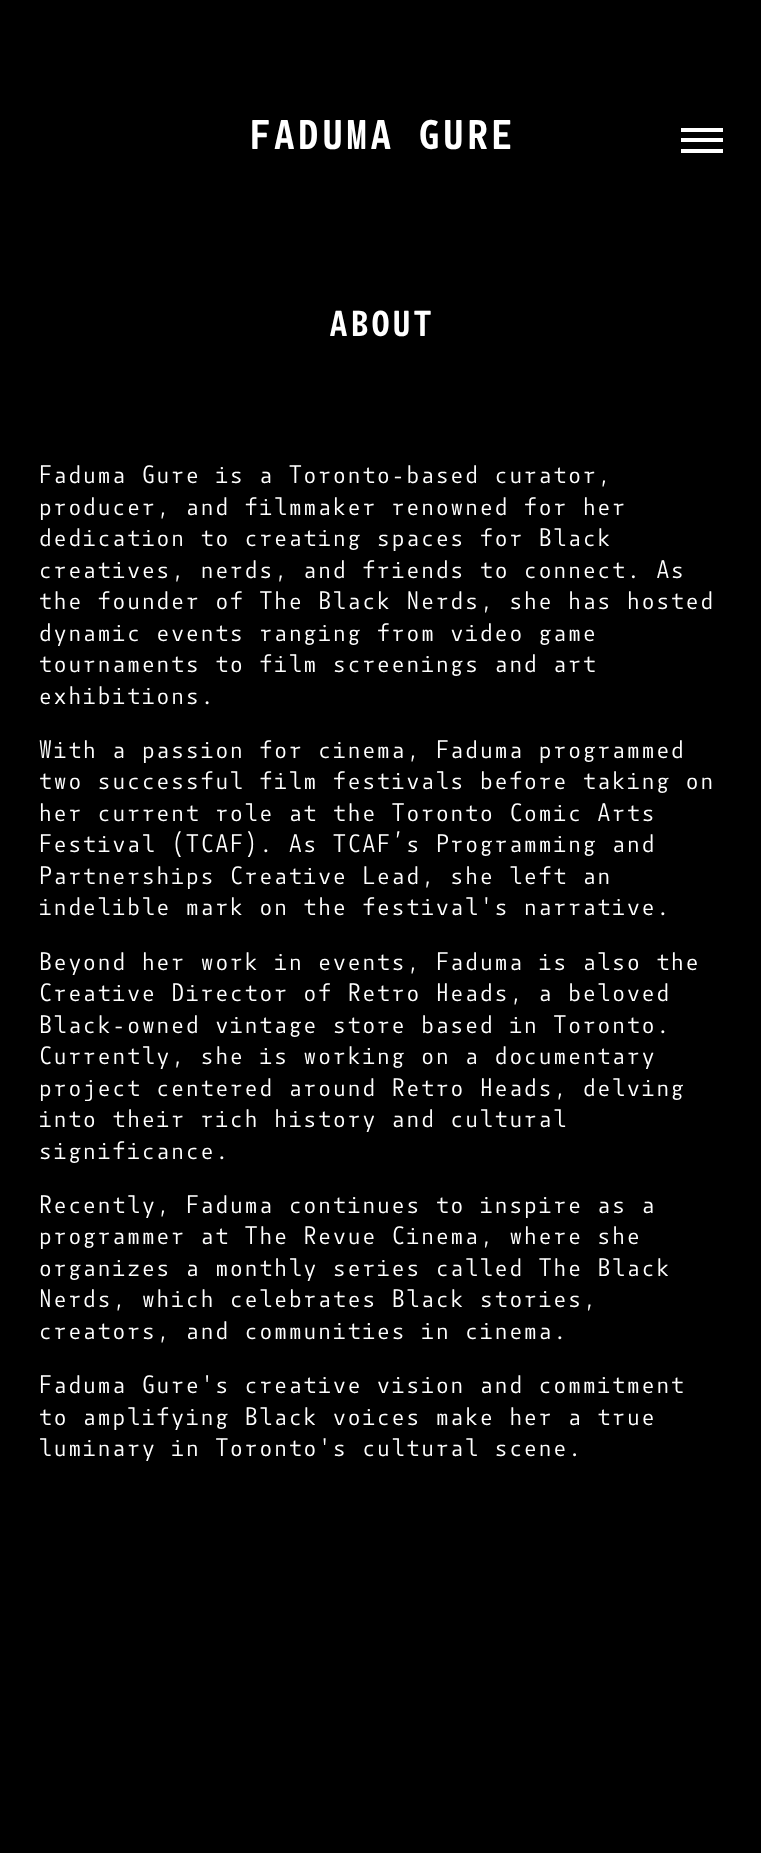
<?xml version="1.0" encoding="UTF-8"?>
<svg xmlns="http://www.w3.org/2000/svg" width="761" height="1853">
    <rect width="100%" height="100%" fill="#000000"/>
    <text x="248" y="149" font-family="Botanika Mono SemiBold" font-size="40.25" font-weight="600" fill="#FFFFFF">FADUMA GURE</text>
    <rect x="681" y="128" width="42" height="4" fill="#FFFFFF"/>
    <rect x="681" y="138" width="42" height="4" fill="#FFFFFF"/>
    <rect x="681" y="149" width="42" height="4" fill="#FFFFFF"/>
    <text x="328" y="336" font-family="Botanika Mono SemiBold" font-size="35" font-weight="600" fill="#FFFFFF">ABOUT</text>
    <text font-family="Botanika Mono" font-size="24.5" fill="#FFFFFF">
        <tspan x="38" y="483">Faduma Gure is a Toronto-based curator,</tspan>
        <tspan x="38" y="515">producer, and filmmaker renowned for her</tspan>
        <tspan x="38" y="546">dedication to creating spaces for Black</tspan>
        <tspan x="38" y="578">creatives, nerds, and friends to connect. As</tspan>
        <tspan x="38" y="609">the founder of The Black Nerds, she has hosted</tspan>
        <tspan x="38" y="641">dynamic events ranging from video game</tspan>
        <tspan x="38" y="672">tournaments to film screenings and art</tspan>
        <tspan x="38" y="704">exhibitions.</tspan>
    </text>
    <text font-family="Botanika Mono" font-size="24.5" fill="#FFFFFF">
        <tspan x="38" y="758">With a passion for cinema, Faduma programmed</tspan>
        <tspan x="38" y="789">two successful film festivals before taking on</tspan>
        <tspan x="38" y="821">her current role at the Toronto Comic Arts</tspan>
        <tspan x="38" y="852">Festival (TCAF). As TCAF’s Programming and</tspan>
        <tspan x="38" y="884">Partnerships Creative Lead, she left an</tspan>
        <tspan x="38" y="915">indelible mark on the festival's narrative.</tspan>
    </text>
    <text font-family="Botanika Mono" font-size="24.5" fill="#FFFFFF">
        <tspan x="38" y="970">Beyond her work in events, Faduma is also the</tspan>
        <tspan x="38" y="1001">Creative Director of Retro Heads, a beloved</tspan>
        <tspan x="38" y="1033">Black-owned vintage store based in Toronto.</tspan>
        <tspan x="38" y="1064">Currently, she is working on a documentary</tspan>
        <tspan x="38" y="1096">project centered around Retro Heads, delving</tspan>
        <tspan x="38" y="1127">into their rich history and cultural</tspan>
        <tspan x="38" y="1159">significance.</tspan>
    </text>
    <text font-family="Botanika Mono" font-size="24.5" fill="#FFFFFF">
        <tspan x="38" y="1213">Recently, Faduma continues to inspire as a</tspan>
        <tspan x="38" y="1244">programmer at The Revue Cinema, where she</tspan>
        <tspan x="38" y="1276">organizes a monthly series called The Black</tspan>
        <tspan x="38" y="1307">Nerds, which celebrates Black stories,</tspan>
        <tspan x="38" y="1339">creators, and communities in cinema.</tspan>
    </text>
    <text font-family="Botanika Mono" font-size="24.5" fill="#FFFFFF">
        <tspan x="38" y="1393">Faduma Gure's creative vision and commitment</tspan>
        <tspan x="38" y="1425">to amplifying Black voices make her a true</tspan>
        <tspan x="38" y="1456">luminary in Toronto's cultural scene.</tspan>
    </text>
</svg>
